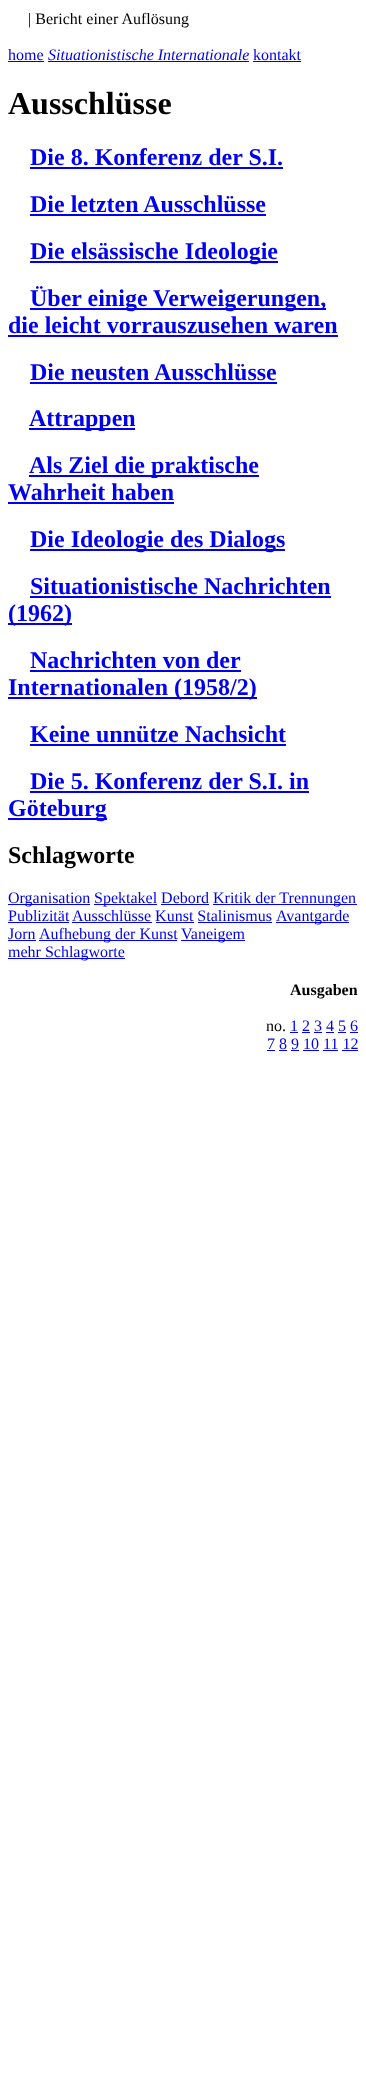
<?xml version="1.0" encoding="UTF-8"?>
<svg xmlns="http://www.w3.org/2000/svg" width="366" height="2085">
    <rect width="100%" height="100%" fill="#FFFFFF"/>
    <text x="28" y="24" font-family="Liberation Serif" font-size="16" fill="#000000">| Bericht einer Auflösung</text>
    <text x="8" y="60" font-family="Liberation Serif" font-size="16" fill="#0000EE">home</text>
    <rect x="8" y="61" width="36" height="1" fill="#0000EE"/>
    <text x="48" y="60" font-family="Liberation Serif" font-size="16" font-style="italic" fill="#0000EE">Situationistische Internationale</text>
    <rect x="48" y="61" width="201" height="1" fill="#0000EE"/>
    <text x="253" y="60" font-family="Liberation Serif" font-size="16" fill="#0000EE">kontakt</text>
    <rect x="253" y="61" width="48" height="1" fill="#0000EE"/>
    <text x="8" y="114" font-family="Liberation Serif" font-size="32" font-weight="700" fill="#000000">Ausschlüsse</text>
    <text x="30" y="165" font-family="Liberation Serif" font-size="24" font-weight="700" fill="#0000EE">Die 8. Konferenz der S.I.</text>
    <rect x="30" y="167" width="253" height="2" fill="#0000EE"/>
    <text x="30" y="212" font-family="Liberation Serif" font-size="24" font-weight="700" fill="#0000EE">Die letzten Ausschlüsse</text>
    <rect x="30" y="214" width="236" height="2" fill="#0000EE"/>
    <rect x="30" y="261" width="248" height="2" fill="#0000EE"/>
    <text x="30" y="259" font-family="Liberation Serif" font-size="24" font-weight="700" fill="#0000EE">Die elsässische Ideologie</text>
    <rect x="30" y="308" width="296" height="2" fill="#0000EE"/>
    <text x="30" y="306" font-family="Liberation Serif" font-size="24" font-weight="700" fill="#0000EE">Über einige Verweigerungen,</text>
    <text x="8" y="333" font-family="Liberation Serif" font-size="24" font-weight="700" fill="#0000EE">die leicht vorrauszusehen waren</text>
    <rect x="8" y="335" width="330" height="2" fill="#0000EE"/>
    <text x="30" y="380" font-family="Liberation Serif" font-size="24" font-weight="700" fill="#0000EE">Die neusten Ausschlüsse</text>
    <rect x="30" y="382" width="247" height="2" fill="#0000EE"/>
    <rect x="29" y="428" width="106" height="2" fill="#0000EE"/>
    <text x="29" y="426" font-family="Liberation Serif" font-size="24" font-weight="700" fill="#0000EE">Attrappen</text>
    <rect x="29" y="475" width="230" height="2" fill="#0000EE"/>
    <text x="29" y="473" font-family="Liberation Serif" font-size="24" font-weight="700" fill="#0000EE">Als Ziel die praktische</text>
    <text x="8" y="500" font-family="Liberation Serif" font-size="24" font-weight="700" fill="#0000EE">Wahrheit haben</text>
    <rect x="8" y="502" width="166" height="2" fill="#0000EE"/>
    <rect x="30" y="549" width="255" height="2" fill="#0000EE"/>
    <text font-family="Liberation Serif" font-size="24" font-weight="700" fill="#0000EE">
        <tspan x="30" y="547">Die Ideologie des Dialogs</tspan>
        <tspan x="30" y="594">Situationistische Nachrichten</tspan>
    </text>
    <rect x="30" y="596" width="301" height="2" fill="#0000EE"/>
    <rect x="8" y="623" width="64" height="2" fill="#0000EE"/>
    <text x="8" y="621" font-family="Liberation Serif" font-size="24" font-weight="700" fill="#0000EE">(1962)</text>
    <text x="30" y="668" font-family="Liberation Serif" font-size="24" font-weight="700" fill="#0000EE">Nachrichten von der</text>
    <rect x="30" y="670" width="211" height="2" fill="#0000EE"/>
    <rect x="8" y="697" width="249" height="2" fill="#0000EE"/>
    <text x="8" y="695" font-family="Liberation Serif" font-size="24" font-weight="700" fill="#0000EE">Internationalen (1958/2)</text>
    <text x="30" y="742" font-family="Liberation Serif" font-size="24" font-weight="700" fill="#0000EE">Keine unnütze Nachsicht</text>
    <rect x="30" y="744" width="256" height="2" fill="#0000EE"/>
    <text x="30" y="789" font-family="Liberation Serif" font-size="24" font-weight="700" fill="#0000EE">Die 5. Konferenz der S.I. in</text>
    <rect x="30" y="791" width="279" height="2" fill="#0000EE"/>
    <rect x="8" y="818" width="99" height="2" fill="#0000EE"/>
    <text x="8" y="816" font-family="Liberation Serif" font-size="24" font-weight="700" fill="#0000EE">Göteburg</text>
    <text x="8" y="863" font-family="Liberation Serif" font-size="24" font-weight="700" fill="#000000">Schlagworte</text>
    <rect x="8" y="904" width="82" height="1" fill="#0000EE"/>
    <text x="8" y="903" font-family="Liberation Serif" font-size="16" fill="#0000EE">Organisation</text>
    <rect x="94" y="904" width="63" height="1" fill="#0000EE"/>
    <text x="94" y="903" font-family="Liberation Serif" font-size="16" fill="#0000EE">Spektakel Debord</text>
    <rect x="213" y="904" width="144" height="1" fill="#0000EE"/>
    <text x="213" y="903" font-family="Liberation Serif" font-size="16" fill="#0000EE">Kritik der Trennungen</text>
    <rect x="161" y="904" width="48" height="1" fill="#0000EE"/>
    <text x="8" y="921" font-family="Liberation Serif" font-size="16" fill="#0000EE">Publizität</text>
    <rect x="8" y="922" width="61" height="1" fill="#0000EE"/>
    <text x="72" y="921" font-family="Liberation Serif" font-size="16" fill="#0000EE">Ausschlüsse Kunst Stalinismus</text>
    <rect x="72" y="922" width="80" height="1" fill="#0000EE"/>
    <rect x="276" y="922" width="73" height="1" fill="#0000EE"/>
    <text x="276" y="921" font-family="Liberation Serif" font-size="16" fill="#0000EE">Avantgarde</text>
    <rect x="156" y="922" width="38" height="1" fill="#0000EE"/>
    <rect x="198" y="922" width="74" height="1" fill="#0000EE"/>
    <text x="8" y="939" font-family="Liberation Serif" font-size="16" fill="#0000EE">Jorn</text>
    <rect x="8" y="940" width="28" height="1" fill="#0000EE"/>
    <rect x="39" y="940" width="138" height="1" fill="#0000EE"/>
    <text x="39" y="939" font-family="Liberation Serif" font-size="16" fill="#0000EE">Aufhebung der Kunst</text>
    <rect x="181" y="940" width="64" height="1" fill="#0000EE"/>
    <text x="181" y="939" font-family="Liberation Serif" font-size="16" fill="#0000EE">Vaneigem</text>
    <rect x="8" y="958" width="117" height="1" fill="#0000EE"/>
    <text x="8" y="957" font-family="Liberation Serif" font-size="16" fill="#0000EE">mehr Schlagworte</text>
    <text x="290" y="995" font-family="Liberation Serif" font-size="16" font-weight="700" fill="#000000">Ausgaben</text>
    <text x="266" y="1031" font-family="Liberation Serif" font-size="16" fill="#000000">no.</text>
    <text x="290" y="1031" font-family="Liberation Serif" font-size="16" fill="#0000EE">1 2 3 4 5 6</text>
    <rect x="290" y="1032" width="8" height="1" fill="#0000EE"/>
    <rect x="302" y="1032" width="8" height="1" fill="#0000EE"/>
    <rect x="314" y="1032" width="8" height="1" fill="#0000EE"/>
    <rect x="326" y="1032" width="8" height="1" fill="#0000EE"/>
    <rect x="338" y="1032" width="8" height="1" fill="#0000EE"/>
    <rect x="350" y="1032" width="8" height="1" fill="#0000EE"/>
    <text x="267" y="1049" font-family="Liberation Serif" font-size="16" fill="#0000EE">7 8 9 10 11 12</text>
    <rect x="267" y="1050" width="8" height="1" fill="#0000EE"/>
    <rect x="279" y="1050" width="8" height="1" fill="#0000EE"/>
    <rect x="291" y="1050" width="8" height="1" fill="#0000EE"/>
    <rect x="303" y="1050" width="16" height="1" fill="#0000EE"/>
    <rect x="323" y="1050" width="15" height="1" fill="#0000EE"/>
    <rect x="342" y="1050" width="16" height="1" fill="#0000EE"/>
</svg>
